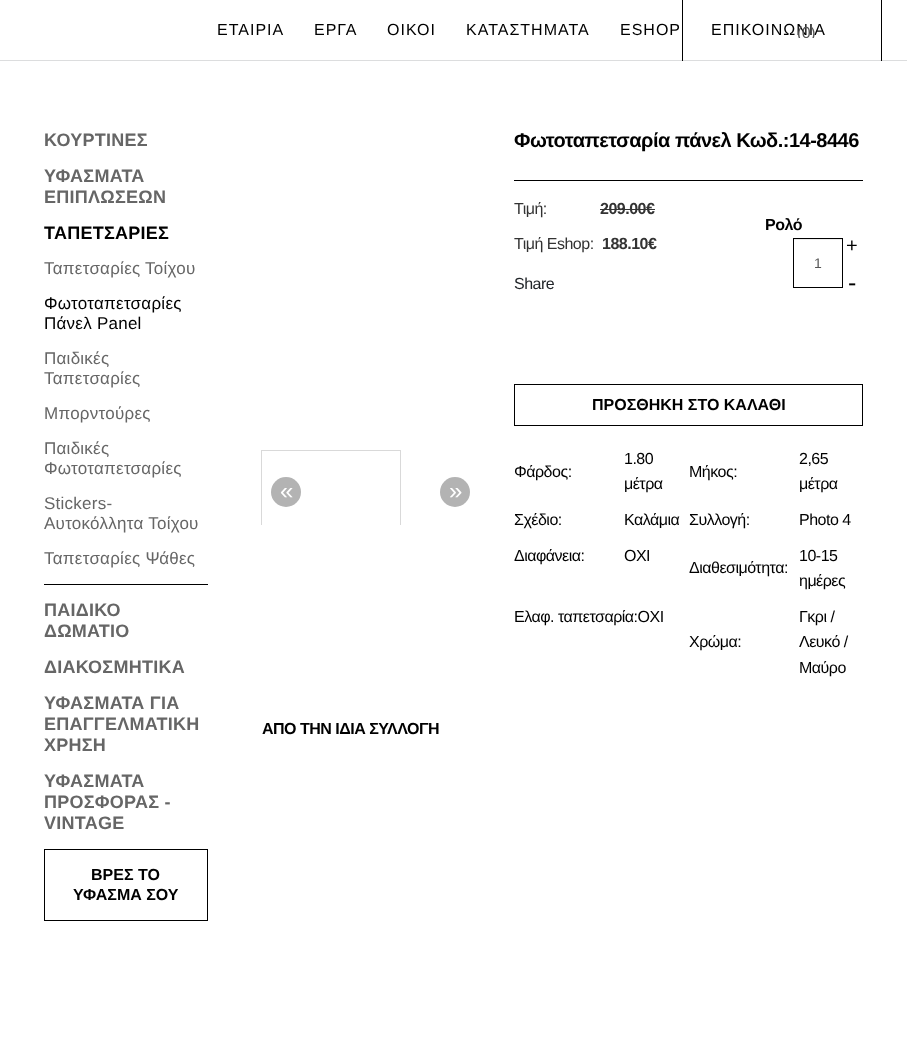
<?xml version="1.0" encoding="UTF-8"?>
<svg xmlns="http://www.w3.org/2000/svg" width="907" height="1054">
    <defs>
        <clipPath id="clip1"><rect x="797" y="20" width="18" height="18"/></clipPath>
        <clipPath id="clip2"><rect x="256" y="445" width="229" height="80"/></clipPath>
    </defs>
    <rect width="100%" height="100%" fill="#FFFFFF"/>
    <rect x="0" y="60" width="907" height="1" fill="#DCDDDE"/>
    <text x="217" y="35" font-family="Liberation Sans" font-size="16" letter-spacing="1" fill="#000000">ΕΤΑΙΡΙΑ</text>
    <text x="314" y="35" font-family="Liberation Sans" font-size="16" letter-spacing="1" fill="#000000">ΕΡΓΑ</text>
    <text x="387" y="35" font-family="Liberation Sans" font-size="16" letter-spacing="1" fill="#000000">ΟΙΚΟΙ</text>
    <text x="466" y="35" font-family="Liberation Sans" font-size="16" letter-spacing="1" fill="#000000">ΚΑΤΑΣΤΗΜΑΤΑ</text>
    <text x="620" y="35" font-family="Liberation Sans" font-size="16" letter-spacing="1" fill="#000000">ESHOP</text>
    <text x="711" y="35" font-family="Liberation Sans" font-size="16" letter-spacing="1" fill="#000000">ΕΠΙΚΟΙΝΩΝΙΑ</text>
    <rect x="881" y="0" width="1" height="61" fill="#000000"/>
    <rect x="682" y="0" width="1" height="61" fill="#000000"/>
    <g clip-path="url(#clip1)">
        <text x="797" y="38" font-family="Liberation Sans" font-size="16" letter-spacing="-0.5" fill="#555555">(0)</text>
    </g>
    <text x="44" y="146" font-family="Liberation Sans" font-size="18" font-weight="700" letter-spacing="0.25" fill="#666666">ΚΟΥΡΤΙΝΕΣ</text>
    <text font-family="Liberation Sans" font-size="18" font-weight="700" letter-spacing="0.25" fill="#666666">
        <tspan x="44" y="182">ΥΦΑΣΜΑΤΑ</tspan>
        <tspan x="44" y="203">ΕΠΙΠΛΩΣΕΩΝ</tspan>
    </text>
    <text x="44" y="239" font-family="Liberation Sans" font-size="18" font-weight="700" letter-spacing="0.25" fill="#000000">ΤΑΠΕΤΣΑΡΙΕΣ</text>
    <rect x="44" y="584" width="164" height="1" fill="#000000"/>
    <text x="44" y="274" font-family="Liberation Sans" font-size="17" letter-spacing="0.25" fill="#666666">Ταπετσαρίες Τοίχου</text>
    <text font-family="Liberation Sans" font-size="17" letter-spacing="0.25" fill="#000000">
        <tspan x="44" y="309">Φωτοταπετσαρίες</tspan>
        <tspan x="44" y="329">Πάνελ Panel</tspan>
    </text>
    <text font-family="Liberation Sans" font-size="17" letter-spacing="0.25" fill="#666666">
        <tspan x="44" y="364">Παιδικές</tspan>
        <tspan x="44" y="384">Ταπετσαρίες</tspan>
    </text>
    <text x="44" y="419" font-family="Liberation Sans" font-size="17" letter-spacing="0.25" fill="#666666">Μπορντούρες</text>
    <text font-family="Liberation Sans" font-size="17" letter-spacing="0.25" fill="#666666">
        <tspan x="44" y="454">Παιδικές</tspan>
        <tspan x="44" y="474">Φωτοταπετσαρίες</tspan>
    </text>
    <text font-family="Liberation Sans" font-size="17" letter-spacing="0.25" fill="#666666">
        <tspan x="44" y="509">Stickers-</tspan>
        <tspan x="44" y="529">Αυτοκόλλητα Τοίχου</tspan>
    </text>
    <text x="44" y="564" font-family="Liberation Sans" font-size="17" letter-spacing="0.25" fill="#666666">Ταπετσαρίες Ψάθες</text>
    <text font-family="Liberation Sans" font-size="18" font-weight="700" letter-spacing="0.25" fill="#666666">
        <tspan x="44" y="616">ΠΑΙΔΙΚΟ</tspan>
        <tspan x="44" y="637">ΔΩΜΑΤΙΟ</tspan>
    </text>
    <text x="44" y="673" font-family="Liberation Sans" font-size="18" font-weight="700" letter-spacing="0.25" fill="#666666">ΔΙΑΚΟΣΜΗΤΙΚΑ</text>
    <text font-family="Liberation Sans" font-size="18" font-weight="700" letter-spacing="0.25" fill="#666666">
        <tspan x="44" y="709">ΥΦΑΣΜΑΤΑ ΓΙΑ</tspan>
        <tspan x="44" y="730">ΕΠΑΓΓΕΛΜΑΤΙΚΗ</tspan>
        <tspan x="44" y="751">ΧΡΗΣΗ</tspan>
    </text>
    <text font-family="Liberation Sans" font-size="18" font-weight="700" letter-spacing="0.25" fill="#666666">
        <tspan x="44" y="787">ΥΦΑΣΜΑΤΑ</tspan>
        <tspan x="44" y="808">ΠΡΟΣΦΟΡΑΣ -</tspan>
        <tspan x="44" y="829">VINTAGE</tspan>
    </text>
    <rect x="44.5" y="849.5" width="163" height="71" fill="none" stroke="#000000"/>
    <text x="91" y="880" font-family="Liberation Sans" font-size="16" font-weight="700" fill="#000000">ΒΡΕΣ ΤΟ</text>
    <text x="73" y="900" font-family="Liberation Sans" font-size="16" font-weight="700" fill="#000000">ΥΦΑΣΜΑ ΣΟΥ</text>
    <g clip-path="url(#clip2)">
        <rect x="261.5" y="450.5" width="139" height="88" fill="none" stroke="#D9D9D9"/>
    </g>
    <circle cx="286" cy="492" r="15" fill="#B3B3B3"/>
    <text x="280" y="499" font-family="Liberation Sans" font-size="24" letter-spacing="-0.5" fill="#FFFFFF">«</text>
    <circle cx="455" cy="492" r="15" fill="#B3B3B3"/>
    <text x="449" y="499" font-family="Liberation Sans" font-size="24" letter-spacing="-0.5" fill="#FFFFFF">»</text>
    <text x="514" y="147" font-family="Liberation Sans" font-size="20" font-weight="700" letter-spacing="-0.5" fill="#000000">Φωτοταπετσαρία πάνελ Κωδ.:14-8446</text>
    <rect x="514" y="180" width="349" height="1" fill="#000000"/>
    <text x="514" y="214" font-family="Liberation Sans" font-size="16" letter-spacing="-0.5" fill="#333333">Τιμή:</text>
    <text x="600" y="214" font-family="Liberation Sans" font-size="16" font-weight="700" letter-spacing="-0.5" fill="#333333">209.00€</text>
    <rect x="600" y="209" width="55" height="1" fill="#333333"/>
    <text x="514" y="249" font-family="Liberation Sans" font-size="16" letter-spacing="-0.5" fill="#333333">Τιμή Eshop:</text>
    <text x="602" y="249" font-family="Liberation Sans" font-size="16" font-weight="700" letter-spacing="-0.5" fill="#333333">188.10€</text>
    <text x="514" y="289" font-family="Liberation Sans" font-size="16" letter-spacing="-0.5" fill="#212529">Share</text>
    <text x="765" y="230" font-family="Liberation Sans" font-size="16" font-weight="700" letter-spacing="-0.5" fill="#000000">Ρολό</text>
    <rect x="794" y="239" width="48" height="1" fill="#ECECEC"/>
    <rect x="793.5" y="238.5" width="49" height="49" fill="none" stroke="#000000"/>
    <text x="814" y="268" font-family="Liberation Sans" font-size="14" fill="#555555">1</text>
    <text x="846" y="252" font-family="Liberation Sans" font-size="20" letter-spacing="-0.5" fill="#000000">+</text>
    <text x="848" y="291" font-family="Liberation Sans" font-size="25" letter-spacing="-0.5" fill="#000000">-</text>
    <rect x="514.5" y="384.5" width="348" height="41" fill="none" stroke="#000000"/>
    <text x="592" y="410" font-family="Liberation Sans" font-size="16" font-weight="700" fill="#000000">ΠΡΟΣΘΗΚΗ ΣΤΟ ΚΑΛΑΘΙ</text>
    <text x="514" y="477" font-family="Liberation Sans" font-size="16" letter-spacing="-0.5" fill="#000000">Φάρδος:</text>
    <text font-family="Liberation Sans" font-size="16" letter-spacing="-0.5" fill="#000000">
        <tspan x="624" y="464">1.80</tspan>
        <tspan x="624" y="489">μέτρα</tspan>
    </text>
    <text x="689" y="477" font-family="Liberation Sans" font-size="16" letter-spacing="-0.5" fill="#000000">Μήκος:</text>
    <text font-family="Liberation Sans" font-size="16" letter-spacing="-0.5" fill="#000000">
        <tspan x="799" y="464">2,65</tspan>
        <tspan x="799" y="489">μέτρα</tspan>
    </text>
    <text x="514" y="525" font-family="Liberation Sans" font-size="16" letter-spacing="-0.5" fill="#000000">Σχέδιο:</text>
    <text x="624" y="525" font-family="Liberation Sans" font-size="16" letter-spacing="-0.5" fill="#000000">Καλάμια</text>
    <text x="689" y="525" font-family="Liberation Sans" font-size="16" letter-spacing="-0.5" fill="#000000">Συλλογή:</text>
    <text x="799" y="525" font-family="Liberation Sans" font-size="16" letter-spacing="-0.5" fill="#000000">Photo 4</text>
    <text x="514" y="561" font-family="Liberation Sans" font-size="16" letter-spacing="-0.5" fill="#000000">Διαφάνεια:</text>
    <text x="624" y="561" font-family="Liberation Sans" font-size="16" letter-spacing="-0.5" fill="#000000">ΟΧΙ</text>
    <text x="689" y="573" font-family="Liberation Sans" font-size="16" letter-spacing="-0.5" fill="#000000">Διαθεσιμότητα:</text>
    <text font-family="Liberation Sans" font-size="16" letter-spacing="-0.5" fill="#000000">
        <tspan x="799" y="561">10-15</tspan>
        <tspan x="799" y="586">ημέρες</tspan>
    </text>
    <text x="514" y="622" font-family="Liberation Sans" font-size="16" letter-spacing="-0.5" fill="#000000">Ελαφ. ταπετσαρία:ΟΧΙ</text>
    <text x="689" y="647" font-family="Liberation Sans" font-size="16" letter-spacing="-0.5" fill="#000000">Χρώμα:</text>
    <text font-family="Liberation Sans" font-size="16" letter-spacing="-0.5" fill="#000000">
        <tspan x="799" y="622">Γκρι /</tspan>
        <tspan x="799" y="647">Λευκό /</tspan>
        <tspan x="799" y="673">Μαύρο</tspan>
    </text>
    <text x="262" y="734" font-family="Liberation Sans" font-size="16" font-weight="700" letter-spacing="-0.5" fill="#000000">ΑΠΟ ΤΗΝ ΙΔΙΑ ΣΥΛΛΟΓΗ</text>
</svg>
